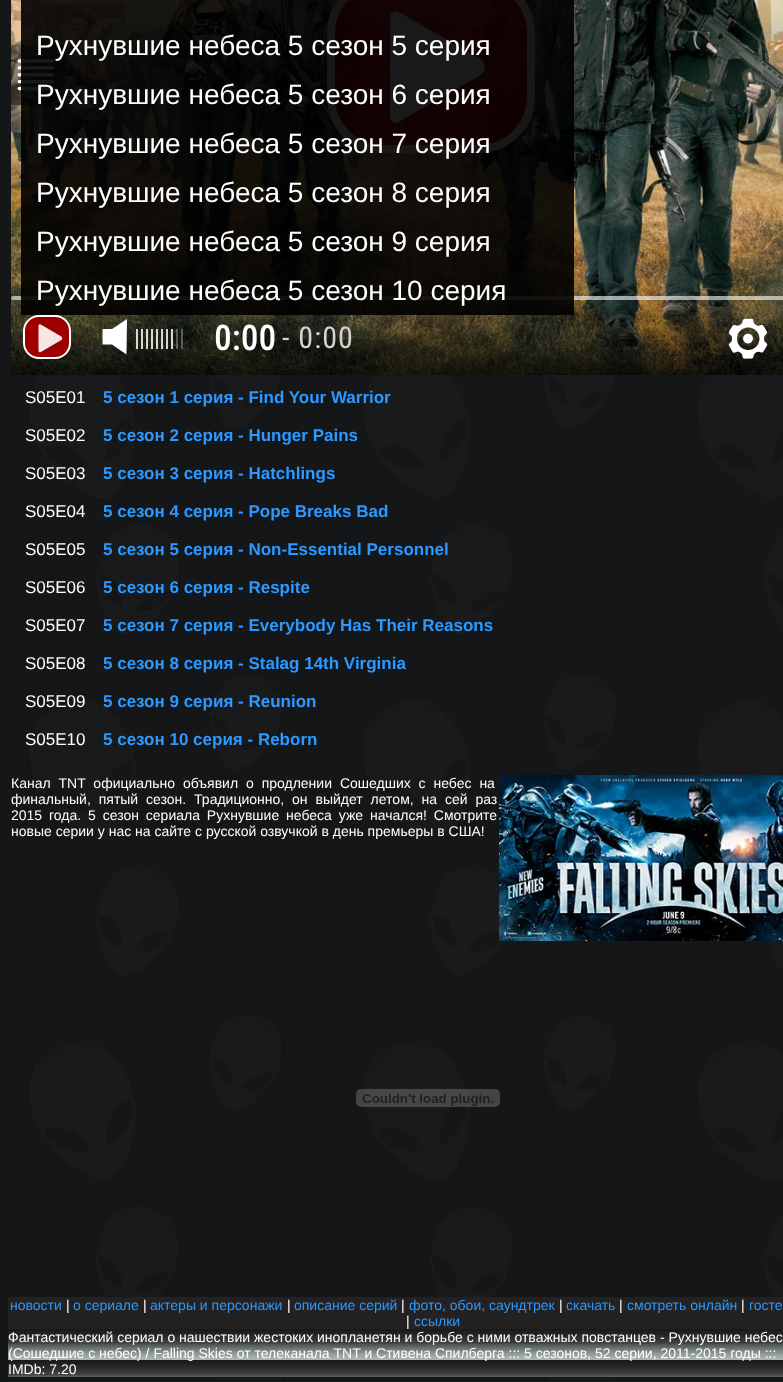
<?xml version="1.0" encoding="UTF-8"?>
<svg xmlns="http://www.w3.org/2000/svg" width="783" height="1382">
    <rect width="100%" height="100%" fill="#FFFFFF"/>
    <image x="0" y="0" width="783" height="1382" href="img_01.png"/>
    <image x="11" y="0" width="772" height="375" href="img_02.png"/>
    <rect x="331" y="-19" width="200" height="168" rx="52" fill="#BD0000" fill-opacity="0.8" stroke="#F7DFDF" stroke-width="8"/>
    <path d="M 482 60 L 399 12 L 396 11 C 393 11 390 14 390 17 V 117 C 390 121 394 124 397 123 L 468 82 C 473 79 486 75 485 66 C 484 64 483 62 482 60 Z" fill="#FFFFFF"/>
    <rect x="21" y="0" width="553" height="21" fill="#000000" fill-opacity="0.9"/>
    <rect x="11" y="45" width="55" height="60" fill="#000000" fill-opacity="0.4"/>
    <image x="17" y="59" width="38" height="32" href="img_03.png"/>
    <rect x="21" y="21" width="553" height="49" fill="#000000" fill-opacity="0.9"/>
    <text x="36" y="55" font-family="Liberation Sans" font-size="28" fill="#FFFFFF">Рухнувшие небеса 5 сезон 5 серия</text>
    <rect x="21" y="70" width="553" height="49" fill="#000000" fill-opacity="0.9"/>
    <text x="36" y="104" font-family="Liberation Sans" font-size="28" fill="#FFFFFF">Рухнувшие небеса 5 сезон 6 серия</text>
    <rect x="21" y="119" width="553" height="49" fill="#000000" fill-opacity="0.9"/>
    <text x="36" y="153" font-family="Liberation Sans" font-size="28" fill="#FFFFFF">Рухнувшие небеса 5 сезон 7 серия</text>
    <rect x="21" y="168" width="553" height="49" fill="#000000" fill-opacity="0.9"/>
    <text x="36" y="202" font-family="Liberation Sans" font-size="28" fill="#FFFFFF">Рухнувшие небеса 5 сезон 8 серия</text>
    <rect x="21" y="217" width="553" height="49" fill="#000000" fill-opacity="0.9"/>
    <text x="36" y="251" font-family="Liberation Sans" font-size="28" fill="#FFFFFF">Рухнувшие небеса 5 сезон 9 серия</text>
    <image x="11" y="293" width="772" height="82" href="img_04.png"/>
    <rect x="11" y="296" width="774" height="4" rx="2" fill="#FFFFFF" fill-opacity="0.6"/>
    <path d="M 21 266 H 574 V 314 C 574 314.5 573.5 315 573 315 H 22 C 21.5 315 21 314.5 21 314 Z" fill="#000000" fill-opacity="0.9"/>
    <text x="36" y="300" font-family="Liberation Sans" font-size="28" fill="#FFFFFF">Рухнувшие небеса 5 сезон 10 серия</text>
    <rect x="24" y="316" width="46" height="42" rx="15" fill="#9E0000" stroke="#FFFFFF" stroke-width="2"/>
    <image x="38" y="324" width="25" height="29" href="img_05.png"/>
    <path d="M 102.5 344.5 V 329 H 112 L 127 319 L 126.5 354.5 L 112 344.5 Z" fill="#FFFFFF"/>
    <image x="136" y="329" width="47" height="20" href="img_06.png"/>
    <image x="136" y="329" width="37" height="20" href="img_07.png"/>
    <text x="214" y="350" font-family="Roboto Condensed" font-size="34" font-weight="700" letter-spacing="1" fill="#FFFFFF">0:00</text>
    <text x="282" y="348" font-family="Roboto Condensed" font-size="30" letter-spacing="1" fill="#D3D3D1">- 0:00</text>
    <image x="728" y="318" width="40" height="41" href="img_08.png"/>
    <text x="25" y="403" font-family="Liberation Sans" font-size="17" fill="#FFFFFF">S05E01</text>
    <text x="103" y="403" font-family="Liberation Sans" font-size="17" font-weight="700" fill="#2B99FF">5 сезон 1 серия - Find Your Warrior</text>
    <text x="25" y="441" font-family="Liberation Sans" font-size="17" fill="#FFFFFF">S05E02</text>
    <text x="103" y="441" font-family="Liberation Sans" font-size="17" font-weight="700" fill="#2B99FF">5 сезон 2 серия - Hunger Pains</text>
    <text x="25" y="479" font-family="Liberation Sans" font-size="17" fill="#FFFFFF">S05E03</text>
    <text x="103" y="479" font-family="Liberation Sans" font-size="17" font-weight="700" fill="#2B99FF">5 сезон 3 серия - Hatchlings</text>
    <text x="25" y="517" font-family="Liberation Sans" font-size="17" fill="#FFFFFF">S05E04</text>
    <text x="103" y="517" font-family="Liberation Sans" font-size="17" font-weight="700" fill="#2B99FF">5 сезон 4 серия - Pope Breaks Bad</text>
    <text x="25" y="555" font-family="Liberation Sans" font-size="17" fill="#FFFFFF">S05E05</text>
    <text x="103" y="555" font-family="Liberation Sans" font-size="17" font-weight="700" fill="#2B99FF">5 сезон 5 серия - Non-Essential Personnel</text>
    <text x="25" y="593" font-family="Liberation Sans" font-size="17" fill="#FFFFFF">S05E06</text>
    <text x="103" y="593" font-family="Liberation Sans" font-size="17" font-weight="700" fill="#2B99FF">5 сезон 6 серия - Respite</text>
    <text x="25" y="631" font-family="Liberation Sans" font-size="17" fill="#FFFFFF">S05E07</text>
    <text x="103" y="631" font-family="Liberation Sans" font-size="17" font-weight="700" fill="#2B99FF">5 сезон 7 серия - Everybody Has Their Reasons</text>
    <text x="25" y="669" font-family="Liberation Sans" font-size="17" fill="#FFFFFF">S05E08</text>
    <text x="103" y="669" font-family="Liberation Sans" font-size="17" font-weight="700" fill="#2B99FF">5 сезон 8 серия - Stalag 14th Virginia</text>
    <text x="25" y="707" font-family="Liberation Sans" font-size="17" fill="#FFFFFF">S05E09</text>
    <text x="103" y="707" font-family="Liberation Sans" font-size="17" font-weight="700" fill="#2B99FF">5 сезон 9 серия - Reunion</text>
    <text x="25" y="745" font-family="Liberation Sans" font-size="17" fill="#FFFFFF">S05E10</text>
    <text x="103" y="745" font-family="Liberation Sans" font-size="17" font-weight="700" fill="#2B99FF">5 сезон 10 серия - Reborn</text>
    <text x="11" y="788" word-spacing="4" font-family="Liberation Sans" font-size="14" fill="#FFFFFF">Канал TNT официально объявил о продлении Сошедших с небес на</text>
    <image x="499" y="775" width="284" height="166" href="img_09.png"/>
    <text font-family="Liberation Sans" font-size="14" fill="#FFFFFF">
        <tspan x="11" y="804" word-spacing="4">финальный, пятый сезон. Традиционно, он выйдет летом, на сей раз</tspan>
        <tspan x="11" y="820" word-spacing="3">2015 года.</tspan>
    </text>
    <text x="88" y="820" word-spacing="3" font-family="Liberation Sans" font-size="14" fill="#FFFFFF">5 сезон сериала Рухнувшие небеса уже начался! Смотрите</text>
    <text x="11" y="836" font-family="Liberation Sans" font-size="14" fill="#FFFFFF">новые серии у нас на сайте с русской озвучкой в день премьеры в США!</text>
    <image x="356" y="1089" width="144" height="18" href="img_10.png"/>
    <rect x="8" y="1297" width="775" height="32" fill="#232121"/>
    <text x="10" y="1310" font-family="Liberation Sans" font-size="14" fill="#2B99FF">новости</text>
    <text x="66" y="1310" font-family="Liberation Sans" font-size="14" fill="#FFFFFF">|</text>
    <text x="73" y="1310" font-family="Liberation Sans" font-size="14" fill="#2B99FF">о сериале</text>
    <text x="143" y="1310" font-family="Liberation Sans" font-size="14" fill="#FFFFFF">|</text>
    <text x="150" y="1310" font-family="Liberation Sans" font-size="14" fill="#2B99FF">актеры и персонажи</text>
    <text x="287" y="1310" font-family="Liberation Sans" font-size="14" fill="#FFFFFF">|</text>
    <text x="294" y="1310" font-family="Liberation Sans" font-size="14" fill="#2B99FF">описание серий</text>
    <text x="401" y="1310" font-family="Liberation Sans" font-size="14" fill="#FFFFFF">|</text>
    <text x="409" y="1310" font-family="Liberation Sans" font-size="14" fill="#2B99FF">фото, обои, саундтрек</text>
    <text x="559" y="1310" font-family="Liberation Sans" font-size="14" fill="#FFFFFF">|</text>
    <text x="566" y="1310" font-family="Liberation Sans" font-size="14" fill="#2B99FF">скачать</text>
    <text x="619" y="1310" font-family="Liberation Sans" font-size="14" fill="#FFFFFF">|</text>
    <text x="627" y="1310" font-family="Liberation Sans" font-size="14" fill="#2B99FF">смотреть онлайн</text>
    <text x="741" y="1310" font-family="Liberation Sans" font-size="14" fill="#FFFFFF">|</text>
    <text x="749" y="1310" font-family="Liberation Sans" font-size="14" fill="#2B99FF">госте</text>
    <text x="406" y="1326" font-family="Liberation Sans" font-size="14" fill="#FFFFFF">|</text>
    <text x="414" y="1326" font-family="Liberation Sans" font-size="14" fill="#2B99FF">ссылки</text>
    <image x="8" y="1329" width="775" height="48" href="img_11.png"/>
    <text font-family="Liberation Sans" font-size="14" fill="#FFFFFF">
        <tspan x="8" y="1342">Фантастический сериал о нашествии жестоких инопланетян и борьбе с ними отважных повстанцев - Рухнувшие небес</tspan>
        <tspan x="8" y="1358">(Сошедшие с небес) / Falling Skies от телеканала TNT и Стивена Спилберга ::: 5 сезонов, 52 серии, 2011-2015 годы :::</tspan>
        <tspan x="8" y="1374">IMDb: 7.20</tspan>
    </text>
</svg>
